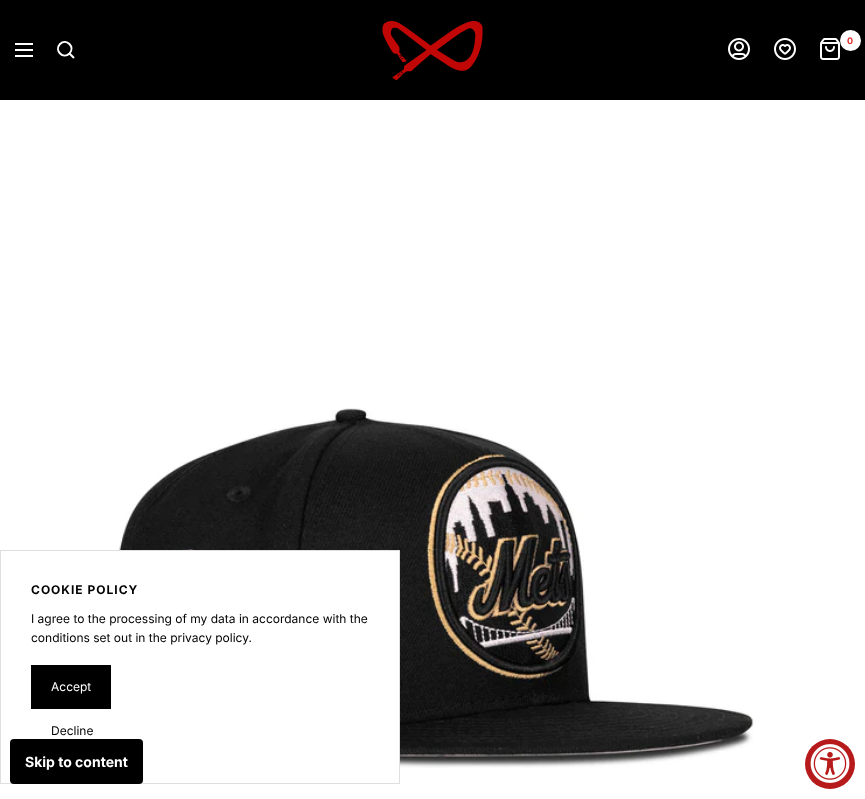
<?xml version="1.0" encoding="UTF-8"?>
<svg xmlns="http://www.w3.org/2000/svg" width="865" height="799">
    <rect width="100%" height="100%" fill="#FFFFFF"/>
    <rect x="0" y="0" width="865" height="100" fill="#000000"/>
    <path d="M 15 44 H 33 M 15 56 H 33 Z M 15 50 H 33 Z M 69.5 53.5 C 75.5 47 66.5 38 60 44 C 54 50.5 63 59.5 69.5 53.5 Z M 69.5 53.5 L 74 58" fill="none" stroke="#FFFFFF" stroke-width="2"/>
    <image x="382" y="21" width="101" height="59" href="img_01.png"/>
    <image x="728" y="38" width="22" height="22" href="img_02.png"/>
    <image x="774" y="38" width="22" height="22" href="img_03.png"/>
    <image x="820" y="38" width="20" height="22" href="img_04.png"/>
    <circle cx="850.5" cy="40.5" r="10.5" fill="#FFFFFF"/>
    <text x="847" y="44" font-family="Inter" font-size="9" font-weight="700" fill="#DE2A2A">0</text>
    <image x="111" y="408" width="645" height="360" href="img_05.png"/>
    <rect x="111" y="551" width="288" height="217" fill="#FFFFFF"/>
    <rect x="0.5" y="550.5" width="399" height="233" fill="none" stroke="#DFDFDF"/>
    <text x="31" y="594" font-family="Inter" font-size="12" font-weight="700" letter-spacing="1" fill="#000000">COOKIE POLICY</text>
    <text font-family="Inter" font-size="12" fill="#000000">
        <tspan x="31" y="623">I agree to the processing of my data in accordance with the</tspan>
        <tspan x="31" y="642">conditions set out in the privacy policy.</tspan>
    </text>
    <rect x="31" y="665" width="80" height="44" fill="#000000"/>
    <text x="51" y="691" font-family="Inter" font-size="12" fill="#FFFFFF">Accept</text>
    <text x="51" y="735" font-family="Inter" font-size="12" fill="#000000">Decline</text>
    <rect x="10" y="739" width="133" height="45" rx="4" fill="#000000"/>
    <text x="25" y="767" font-family="Inter" font-size="14" font-weight="700" fill="#FFFFFF">Skip to content</text>
    <circle cx="830" cy="764" r="25" fill="#B71A1A"/>
    <image x="810" y="744" width="40" height="39" href="img_06.png"/>
</svg>
